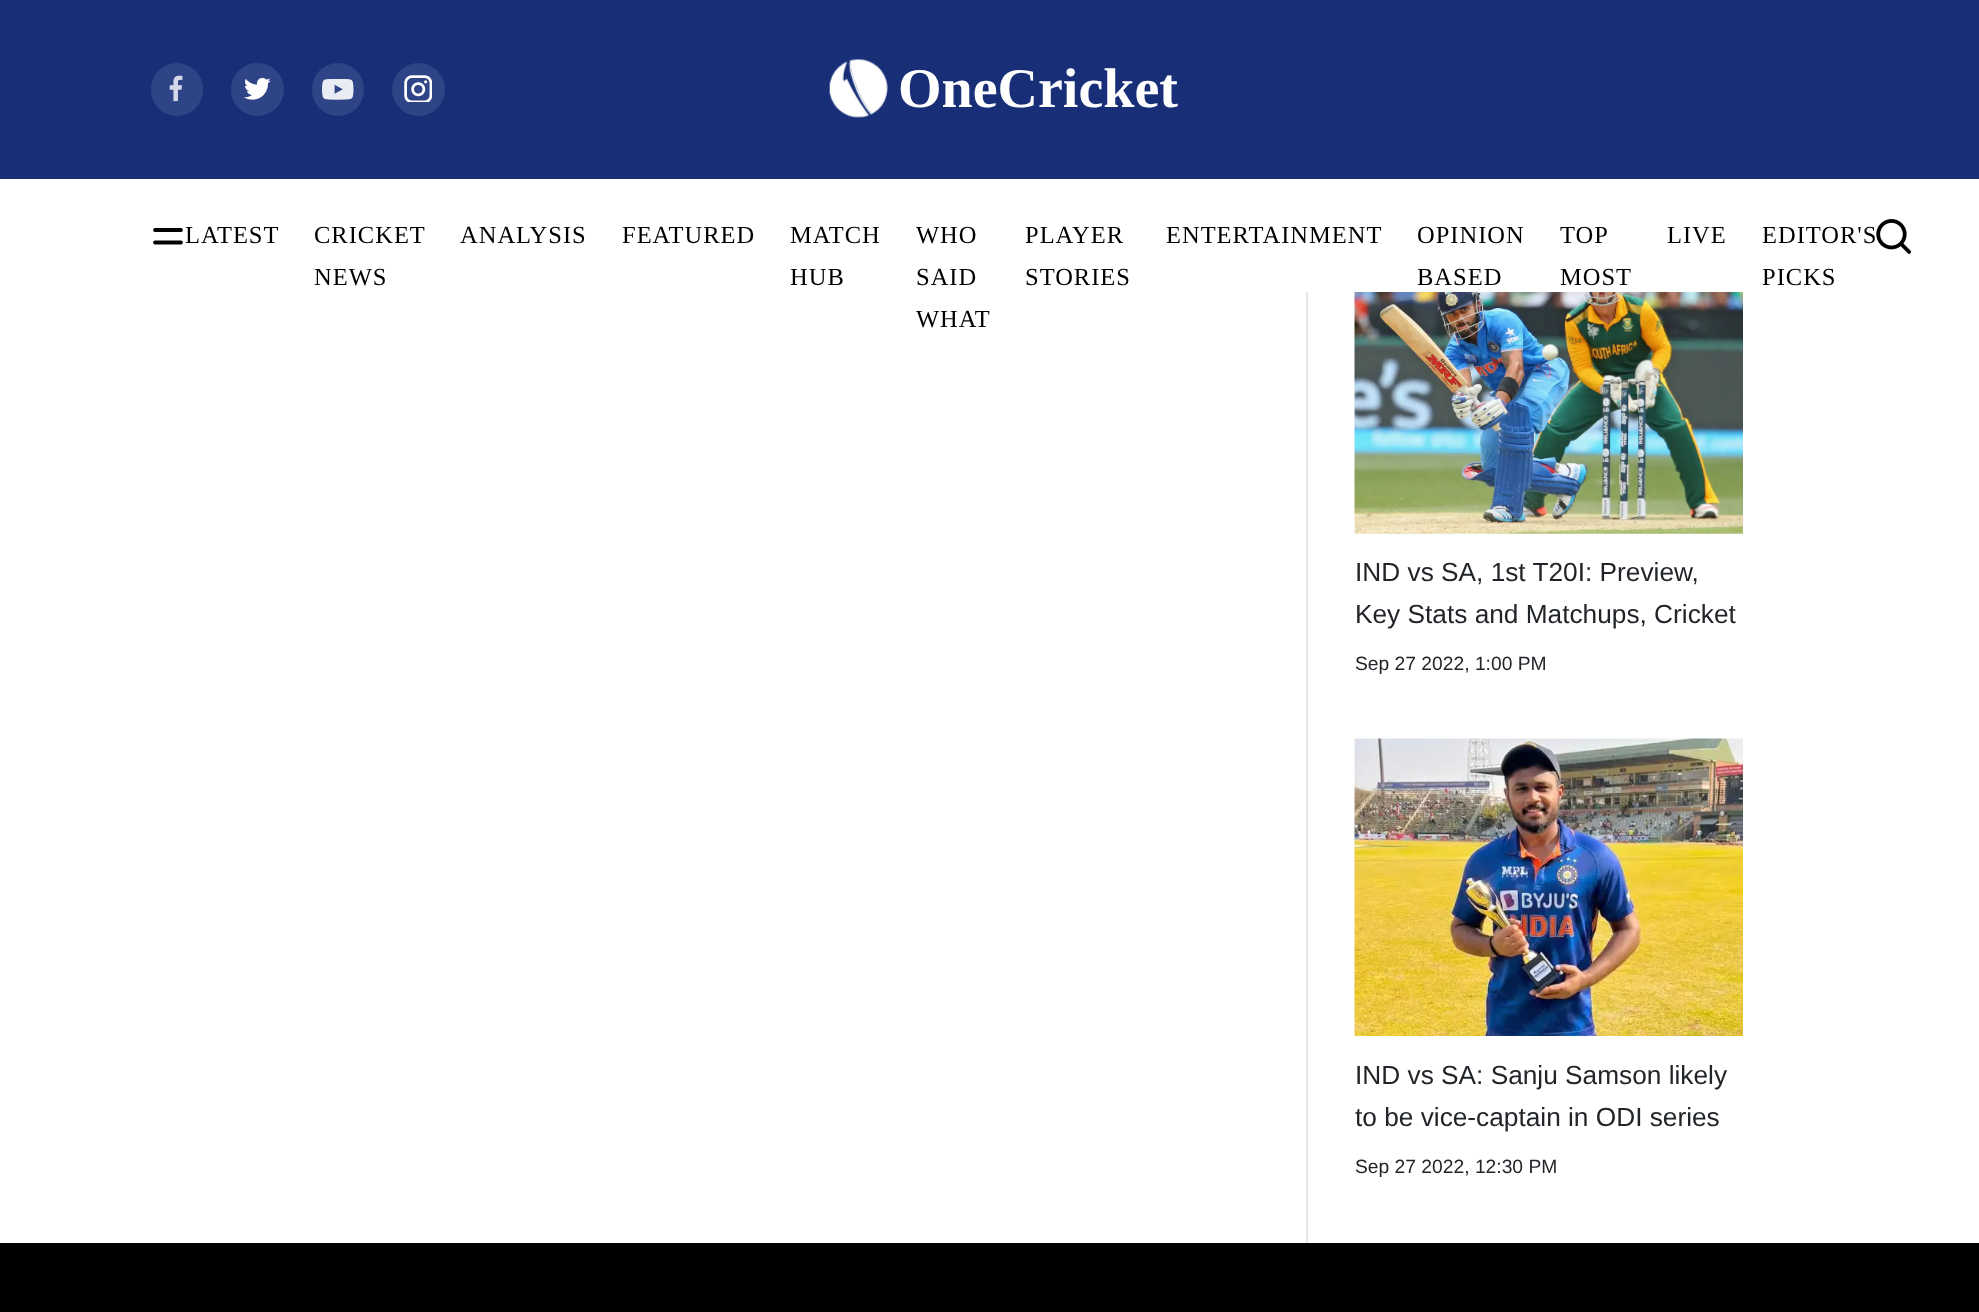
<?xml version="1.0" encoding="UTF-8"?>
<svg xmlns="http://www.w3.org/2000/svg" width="1979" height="1312">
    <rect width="100%" height="100%" fill="#FFFFFF"/>
    <rect x="0" y="0" width="1979" height="179" fill="#182F78"/>
    <rect x="151" y="63" width="52" height="53" rx="26" fill="#2F4486"/>
    <image x="169" y="75" width="14" height="27" href="img_01.png"/>
    <circle cx="257.5" cy="89.5" r="26.5" fill="#2F4486"/>
    <image x="244" y="77" width="27" height="23" href="img_02.png"/>
    <rect x="312" y="63" width="52" height="53" rx="26" fill="#2F4486"/>
    <image x="322" y="79" width="32" height="21" href="img_03.png"/>
    <circle cx="418.5" cy="89.5" r="26.5" fill="#2F4486"/>
    <image x="404" y="75" width="28" height="27" href="img_04.png"/>
    <image x="829" y="59" width="59" height="59" href="img_05.png"/>
    <text x="898" y="107" font-family="Liberation Serif" font-size="56" font-weight="700" fill="#FFFFFF">OneCricket</text>
    <path d="M 155 242.5 H 181 M 155 230 H 181" fill="none" stroke="#000000" stroke-width="3.8" stroke-linecap="round" stroke-linejoin="round"/>
    <text x="185" y="243" font-family="Liberation Serif" font-size="24.5" letter-spacing="1" fill="#000000">LATEST</text>
    <text font-family="Liberation Serif" font-size="24.5" letter-spacing="1" fill="#000000">
        <tspan x="314" y="243">CRICKET</tspan>
        <tspan x="314" y="285">NEWS</tspan>
    </text>
    <text x="460" y="243" font-family="Liberation Serif" font-size="24.5" letter-spacing="1" fill="#000000">ANALYSIS</text>
    <text x="622" y="243" font-family="Liberation Serif" font-size="24.5" letter-spacing="1" fill="#000000">FEATURED</text>
    <text font-family="Liberation Serif" font-size="24.5" letter-spacing="1" fill="#000000">
        <tspan x="790" y="243">MATCH</tspan>
        <tspan x="790" y="285">HUB</tspan>
    </text>
    <text font-family="Liberation Serif" font-size="24.5" letter-spacing="1" fill="#000000">
        <tspan x="916" y="243">WHO</tspan>
        <tspan x="916" y="285">SAID</tspan>
        <tspan x="916" y="327">WHAT</tspan>
    </text>
    <text font-family="Liberation Serif" font-size="24.5" letter-spacing="1" fill="#000000">
        <tspan x="1025" y="243">PLAYER</tspan>
        <tspan x="1025" y="285">STORIES</tspan>
    </text>
    <text x="1166" y="243" font-family="Liberation Serif" font-size="24.5" letter-spacing="1" fill="#000000">ENTERTAINMENT</text>
    <text font-family="Liberation Serif" font-size="24.5" letter-spacing="1" fill="#000000">
        <tspan x="1417" y="243">OPINION</tspan>
        <tspan x="1417" y="285">BASED</tspan>
    </text>
    <text font-family="Liberation Serif" font-size="24.5" letter-spacing="1" fill="#000000">
        <tspan x="1560" y="243">TOP</tspan>
        <tspan x="1560" y="285">MOST</tspan>
    </text>
    <text x="1667" y="243" font-family="Liberation Serif" font-size="24.5" letter-spacing="1" fill="#000000">LIVE</text>
    <text font-family="Liberation Serif" font-size="24.5" letter-spacing="1" fill="#000000">
        <tspan x="1762" y="243">EDITOR'S</tspan>
        <tspan x="1762" y="285">PICKS</tspan>
    </text>
    <image x="1876" y="219" width="35" height="35" href="img_06.png"/>
    <rect x="1306" y="292" width="2" height="951" fill="#E6E6E6"/>
    <image x="1354" y="292" width="389" height="242" href="img_07.png"/>
    <text font-family="Liberation Sans" font-size="26.25" fill="#212529">
        <tspan x="1355" y="581">IND vs SA, 1st T20I: Preview,</tspan>
        <tspan x="1355" y="623">Key Stats and Matchups, Cricket</tspan>
    </text>
    <text x="1355" y="670" font-family="Liberation Sans" font-size="19.25" fill="#212529">Sep 27 2022, 1:00 PM</text>
    <image x="1354" y="738" width="389" height="298" href="img_08.png"/>
    <text font-family="Liberation Sans" font-size="26.25" fill="#212529">
        <tspan x="1355" y="1084">IND vs SA: Sanju Samson likely</tspan>
        <tspan x="1355" y="1126">to be vice-captain in ODI series</tspan>
    </text>
    <text x="1355" y="1173" font-family="Liberation Sans" font-size="19.25" fill="#212529">Sep 27 2022, 12:30 PM</text>
    <rect x="0" y="1243" width="1979" height="69" fill="#000000"/>
</svg>
